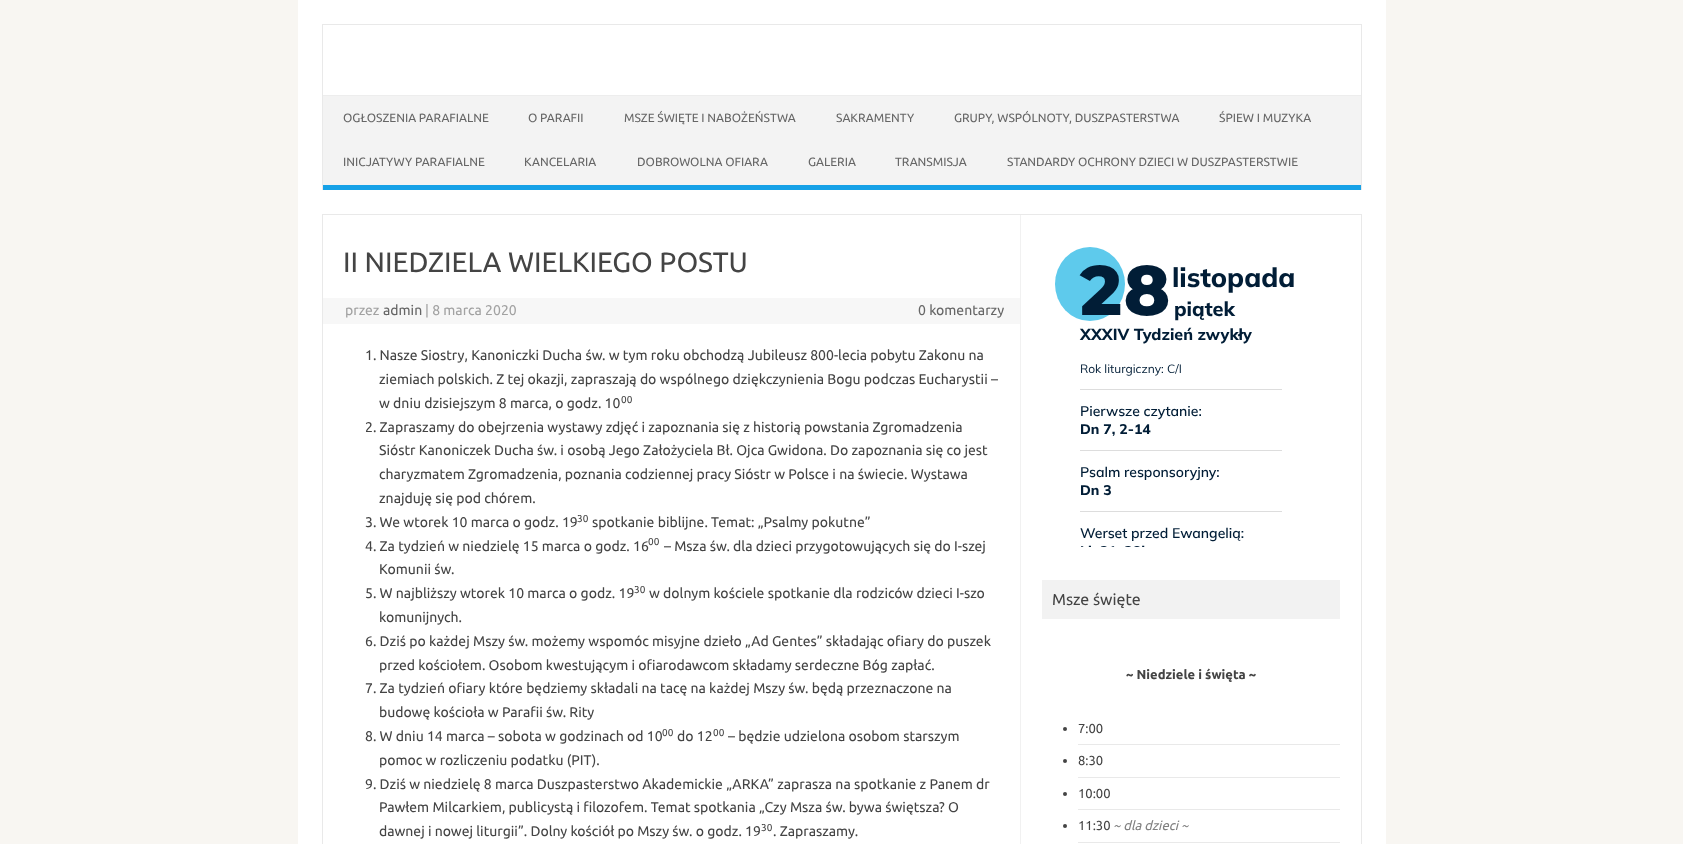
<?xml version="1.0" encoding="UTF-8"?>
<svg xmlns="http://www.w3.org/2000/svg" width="1683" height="844">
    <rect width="100%" height="100%" fill="#F8F6F2"/>
    <rect x="298" y="0" width="1088" height="844" fill="#FFFFFF"/>
    <rect x="322" y="24" width="1040" height="1" fill="#E9E9E9"/>
    <rect x="1361" y="24" width="1" height="166" fill="#E9E9E9"/>
    <rect x="322" y="24" width="1" height="166" fill="#E9E9E9"/>
    <rect x="323" y="96" width="1038" height="89" fill="#F3F3F3"/>
    <rect x="323" y="95" width="1038" height="1" fill="#EDEDED"/>
    <rect x="323" y="185" width="1038" height="5" fill="#16A1E7"/>
    <text x="343" y="122" font-family="Ubuntu" font-size="12" fill="#666666">OGŁOSZENIA PARAFIALNE</text>
    <text x="528" y="122" font-family="Ubuntu" font-size="12" fill="#666666">O PARAFII</text>
    <text x="624" y="122" font-family="Ubuntu" font-size="12" fill="#666666">MSZE ŚWIĘTE I NABOŻEŃSTWA</text>
    <text x="836" y="122" font-family="Ubuntu" font-size="12" fill="#666666">SAKRAMENTY</text>
    <text x="954" y="122" font-family="Ubuntu" font-size="12" fill="#666666">GRUPY, WSPÓLNOTY, DUSZPASTERSTWA</text>
    <text x="1219" y="122" font-family="Ubuntu" font-size="12" fill="#666666">ŚPIEW I MUZYKA</text>
    <text x="343" y="166" font-family="Ubuntu" font-size="12" fill="#666666">INICJATYWY PARAFIALNE</text>
    <text x="524" y="166" font-family="Ubuntu" font-size="12" fill="#666666">KANCELARIA</text>
    <text x="637" y="166" font-family="Ubuntu" font-size="12" fill="#666666">DOBROWOLNA OFIARA</text>
    <text x="808" y="166" font-family="Ubuntu" font-size="12" fill="#666666">GALERIA</text>
    <text x="895" y="166" font-family="Ubuntu" font-size="12" fill="#666666">TRANSMISJA</text>
    <text x="1007" y="166" font-family="Ubuntu" font-size="12" fill="#666666">STANDARDY OCHRONY DZIECI W DUSZPASTERSTWIE</text>
    <rect x="322.5" y="214.5" width="1039" height="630" fill="none" stroke="#E9E9E9"/>
    <rect x="1020" y="215" width="1" height="629" fill="#F1F1F1"/>
    <text x="343" y="272" font-family="Ubuntu" font-size="28" fill="#444444">II NIEDZIELA WIELKIEGO POSTU</text>
    <rect x="323" y="298" width="697" height="26" fill="#F7F7F7"/>
    <text x="345" y="315" font-family="Ubuntu" font-size="14" fill="#A2A2A2">przez</text>
    <text x="383" y="315" font-family="Ubuntu" font-size="14" fill="#666666">admin</text>
    <text x="425" y="315" font-family="Ubuntu" font-size="14" fill="#A2A2A2">| 8 marca 2020</text>
    <text x="918" y="315" font-family="Ubuntu" font-size="14" fill="#666666">0 komentarzy</text>
    <text x="365" y="360" font-family="Ubuntu" font-size="14" fill="#444444">1. Nasze Siostry, Kanoniczki Ducha św. w tym roku obchodzą Jubileusz 800-lecia pobytu Zakonu na</text>
    <text font-family="Ubuntu" font-size="14" fill="#444444">
        <tspan x="379" y="384">ziemiach polskich. Z tej okazji, zapraszają do wspólnego dziękczynienia Bogu podczas Eucharystii –</tspan>
        <tspan x="379" y="408">w dniu dzisiejszym 8 marca, o godz. 10</tspan>
    </text>
    <text x="621" y="403" font-family="Ubuntu" font-size="10" fill="#444444">00</text>
    <text x="365" y="432" font-family="Ubuntu" font-size="14" fill="#444444">2. Zapraszamy do obejrzenia wystawy zdjęć i zapoznania się z historią powstania Zgromadzenia</text>
    <text font-family="Ubuntu" font-size="14" fill="#444444">
        <tspan x="379" y="455">Sióstr Kanoniczek Ducha św. i osobą Jego Założyciela Bł. Ojca Gwidona. Do zapoznania się co jest</tspan>
        <tspan x="379" y="479">charyzmatem Zgromadzenia, poznania codziennej pracy Sióstr w Polsce i na świecie. Wystawa</tspan>
        <tspan x="379" y="503">znajduję się pod chórem.</tspan>
    </text>
    <text x="365" y="527" font-family="Ubuntu" font-size="14" fill="#444444">3. We wtorek 10 marca o godz. 19</text>
    <text x="577" y="522" font-family="Ubuntu" font-size="10" fill="#444444">30</text>
    <text x="592" y="527" font-family="Ubuntu" font-size="14" fill="#444444">spotkanie biblijne. Temat: „Psalmy pokutne”</text>
    <text x="365" y="551" font-family="Ubuntu" font-size="14" fill="#444444">4. Za tydzień w niedzielę 15 marca o godz. 16</text>
    <text x="648" y="545" font-family="Ubuntu" font-size="10" fill="#444444">00</text>
    <text x="664" y="551" font-family="Ubuntu" font-size="14" fill="#444444">– Msza św. dla dzieci przygotowujących się do I-szej</text>
    <text x="379" y="574" font-family="Ubuntu" font-size="14" fill="#444444">Komunii św.</text>
    <text x="365" y="598" font-family="Ubuntu" font-size="14" fill="#444444">5. W najbliższy wtorek 10 marca o godz. 19</text>
    <text x="634" y="593" font-family="Ubuntu" font-size="10" fill="#444444">30</text>
    <text x="649" y="598" font-family="Ubuntu" font-size="14" fill="#444444">w dolnym kościele spotkanie dla rodziców dzieci I-szo</text>
    <text x="379" y="622" font-family="Ubuntu" font-size="14" fill="#444444">komunijnych.</text>
    <text x="365" y="646" font-family="Ubuntu" font-size="14" fill="#444444">6. Dziś po każdej Mszy św. możemy wspomóc misyjne dzieło „Ad Gentes” składając ofiary do puszek</text>
    <text x="379" y="670" font-family="Ubuntu" font-size="14" fill="#444444">przed kościołem. Osobom kwestującym i ofiarodawcom składamy serdeczne Bóg zapłać.</text>
    <text x="365" y="693" font-family="Ubuntu" font-size="14" fill="#444444">7. Za tydzień ofiary które będziemy składali na tacę na każdej Mszy św. będą przeznaczone na</text>
    <text x="379" y="717" font-family="Ubuntu" font-size="14" fill="#444444">budowę kościoła w Parafii św. Rity</text>
    <text x="365" y="741" font-family="Ubuntu" font-size="14" fill="#444444">8. W dniu 14 marca – sobota w godzinach od 10</text>
    <text x="662" y="736" font-family="Ubuntu" font-size="10" fill="#444444">00</text>
    <text x="677" y="741" font-family="Ubuntu" font-size="14" fill="#444444">do 12</text>
    <text x="713" y="736" font-family="Ubuntu" font-size="10" fill="#444444">00</text>
    <text x="728" y="741" font-family="Ubuntu" font-size="14" fill="#444444">– będzie udzielona osobom starszym</text>
    <text x="379" y="765" font-family="Ubuntu" font-size="14" fill="#444444">pomoc w rozliczeniu podatku (PIT).</text>
    <text x="365" y="789" font-family="Ubuntu" font-size="14" fill="#444444">9. Dziś w niedzielę 8 marca Duszpasterstwo Akademickie „ARKA” zaprasza na spotkanie z Panem dr</text>
    <text font-family="Ubuntu" font-size="14" fill="#444444">
        <tspan x="379" y="812">Pawłem Milcarkiem, publicystą i filozofem. Temat spotkania „Czy Msza św. bywa świętsza? O</tspan>
        <tspan x="379" y="836">dawnej i nowej liturgii”. Dolny kościół po Mszy św. o godz. 19</tspan>
    </text>
    <text x="761" y="831" font-family="Ubuntu" font-size="10" fill="#444444">30</text>
    <text x="773" y="836" font-family="Ubuntu" font-size="14" fill="#444444">. Zapraszamy.</text>
    <image x="1055" y="247" width="239" height="300" href="img_01.png"/>
    <rect x="1042" y="580" width="298" height="39" fill="#F2F2F2"/>
    <text x="1052" y="605" font-family="Ubuntu" font-size="16" fill="#444444">Msze święte</text>
    <text x="1126" y="679" font-family="Ubuntu" font-size="13" font-weight="700" fill="#444444">~ Niedziele i święta ~</text>
    <rect x="1078" y="744" width="262" height="1" fill="#E9E9E9"/>
    <circle cx="1065" cy="729" r="2" fill="#444444"/>
    <text x="1078" y="733" font-family="Ubuntu" font-size="13" fill="#444444">7:00</text>
    <rect x="1078" y="777" width="262" height="1" fill="#E9E9E9"/>
    <circle cx="1065" cy="761" r="2" fill="#444444"/>
    <text x="1078" y="765" font-family="Ubuntu" font-size="13" fill="#444444">8:30</text>
    <rect x="1078" y="809" width="262" height="1" fill="#E9E9E9"/>
    <circle cx="1065" cy="794" r="2" fill="#444444"/>
    <text x="1078" y="798" font-family="Ubuntu" font-size="13" fill="#444444">10:00</text>
    <rect x="1078" y="842" width="262" height="1" fill="#E9E9E9"/>
    <circle cx="1065" cy="826" r="2" fill="#444444"/>
    <text x="1078" y="830" font-family="Ubuntu" font-size="13" fill="#444444">11:30</text>
    <text x="1113" y="830" font-family="Ubuntu" font-size="13" font-style="italic" fill="#808080">~ dla dzieci ~</text>
</svg>
